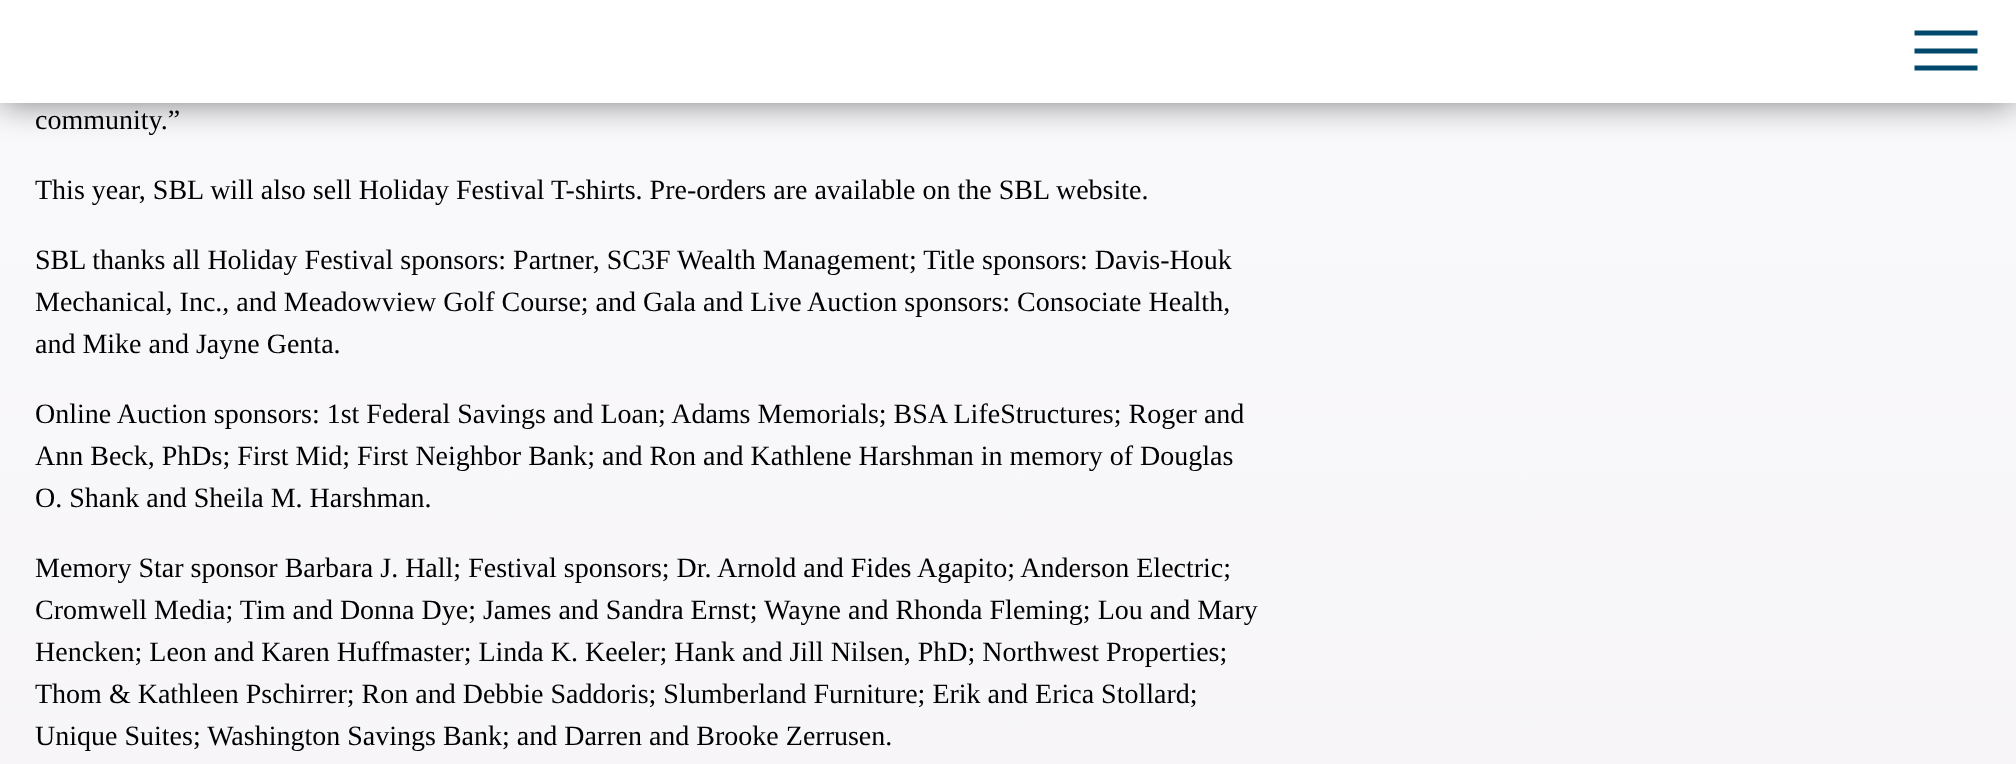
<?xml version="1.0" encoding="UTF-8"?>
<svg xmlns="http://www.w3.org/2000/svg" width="2016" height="764">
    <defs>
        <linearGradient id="g1" gradientUnits="userSpaceOnUse" x1="1008" y1="-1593" x2="1008" y2="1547"><stop offset="0" stop-color="#FFFFFF"/><stop offset="1" stop-color="#F4F2F6"/></linearGradient>
        <filter id="blur1" x="-50%" y="-200%" width="200%" height="500%"><feGaussianBlur stdDeviation="17.5"/></filter>
    </defs>
    <rect width="100%" height="100%" fill="#FFFFFF"/>
    <rect x="0" y="103" width="2016" height="661" fill="url(#g1)"/>
    <rect x="0" y="-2" width="2016" height="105" fill="#000000" fill-opacity="0.5" filter="url(#blur1)"/>
    <rect x="0" y="0" width="2016" height="103" fill="#FFFFFF"/>
    <path d="M 1914.5 51 H 1977.5" fill="none" stroke="#02486D" stroke-width="5.2"/>
    <path d="M 1914.5 33 H 1977.5" fill="none" stroke="#02486D" stroke-width="5.2"/>
    <path d="M 1914.5 68 H 1977.5" fill="none" stroke="#02486D" stroke-width="5.2"/>
    <text x="35" y="129" font-family="Liberation Serif" font-size="28" fill="#000000">community.”</text>
    <text x="35" y="199" font-family="Liberation Serif" font-size="28" fill="#000000">This year, SBL will also sell Holiday Festival T-shirts. Pre-orders are available on the SBL website.</text>
    <text font-family="Liberation Serif" font-size="28" fill="#000000">
        <tspan x="35" y="269">SBL thanks all Holiday Festival sponsors: Partner, SC3F Wealth Management; Title sponsors: Davis-Houk</tspan>
        <tspan x="35" y="311">Mechanical, Inc., and Meadowview Golf Course; and Gala and Live Auction sponsors: Consociate Health,</tspan>
        <tspan x="35" y="353">and Mike and Jayne Genta.</tspan>
    </text>
    <text font-family="Liberation Serif" font-size="28" fill="#000000">
        <tspan x="35" y="423">Online Auction sponsors: 1st Federal Savings and Loan; Adams Memorials; BSA LifeStructures; Roger and</tspan>
        <tspan x="35" y="465">Ann Beck, PhDs; First Mid; First Neighbor Bank; and Ron and Kathlene Harshman in memory of Douglas</tspan>
        <tspan x="35" y="507">O. Shank and Sheila M. Harshman.</tspan>
    </text>
    <text font-family="Liberation Serif" font-size="28" fill="#000000">
        <tspan x="35" y="577">Memory Star sponsor Barbara J. Hall; Festival sponsors; Dr. Arnold and Fides Agapito; Anderson Electric;</tspan>
        <tspan x="35" y="619">Cromwell Media; Tim and Donna Dye; James and Sandra Ernst; Wayne and Rhonda Fleming; Lou and Mary</tspan>
        <tspan x="35" y="661">Hencken; Leon and Karen Huffmaster; Linda K. Keeler; Hank and Jill Nilsen, PhD; Northwest Properties;</tspan>
        <tspan x="35" y="703">Thom &amp; Kathleen Pschirrer; Ron and Debbie Saddoris; Slumberland Furniture; Erik and Erica Stollard;</tspan>
        <tspan x="35" y="745">Unique Suites; Washington Savings Bank; and Darren and Brooke Zerrusen.</tspan>
    </text>
</svg>
